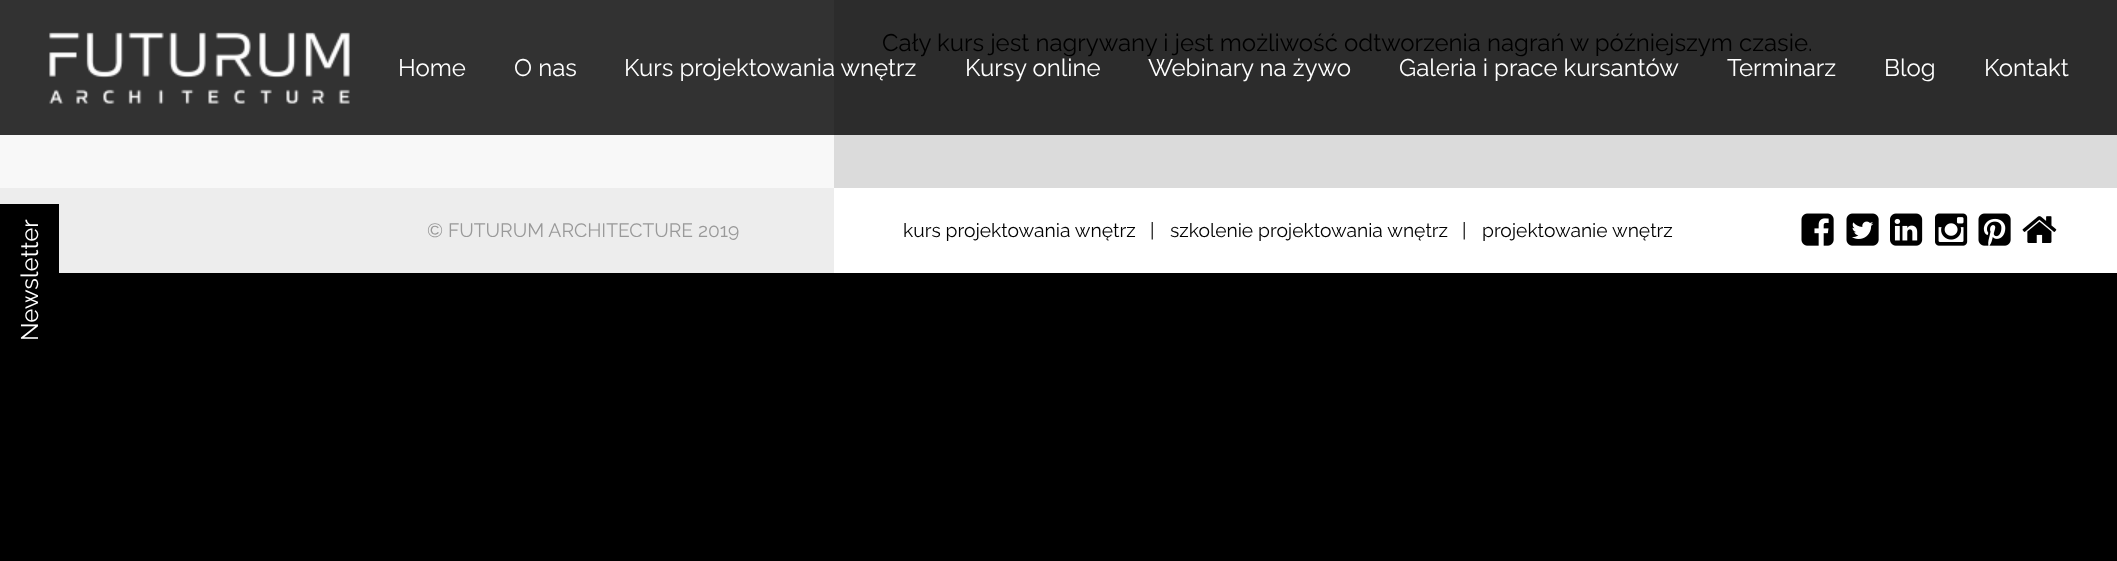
<?xml version="1.0" encoding="UTF-8"?>
<svg xmlns="http://www.w3.org/2000/svg" width="2117" height="561">
    <rect width="100%" height="100%" fill="#DBDBDB"/>
    <rect x="834" y="0" width="1283" height="135" fill="#2C2C2C"/>
    <rect x="0" y="135" width="834" height="53" fill="#F8F8F8"/>
    <rect x="0" y="0" width="834" height="135" fill="#323232"/>
    <text x="882" y="51" font-family="Raleway" font-size="24" fill="#000000">Cały kurs jest nagrywany i jest możliwość odtworzenia nagrań w późniejszym czasie.</text>
    <image x="49" y="32" width="301" height="72" href="img_01.png"/>
    <text x="398" y="76" font-family="Raleway" font-size="24" fill="#FFFFFF">Home</text>
    <text x="514" y="76" font-family="Raleway" font-size="24" fill="#FFFFFF">O nas</text>
    <text x="624" y="76" font-family="Raleway" font-size="24" fill="#FFFFFF">Kurs projektowania wnętrz</text>
    <text x="965" y="76" font-family="Raleway" font-size="24" fill="#FFFFFF">Kursy online</text>
    <text x="1148" y="76" font-family="Raleway" font-size="24" fill="#FFFFFF">Webinary na żywo</text>
    <text x="1399" y="76" font-family="Raleway" font-size="24" fill="#FFFFFF">Galeria i prace kursantów</text>
    <text x="1727" y="76" font-family="Raleway" font-size="24" fill="#FFFFFF">Terminarz</text>
    <text x="1884" y="76" font-family="Raleway" font-size="24" fill="#FFFFFF">Blog</text>
    <text x="1984" y="76" font-family="Raleway" font-size="24" fill="#FFFFFF">Kontakt</text>
    <rect x="0" y="188" width="834" height="85" fill="#EDEDED"/>
    <rect x="0" y="204" width="59" height="69" fill="#000000"/>
    <rect x="0" y="273" width="2117" height="288" fill="#000000"/>
    <text x="38" y="341" transform="rotate(-90 38 341)" font-family="Raleway" font-size="24" fill="#FFFFFF">Newsletter</text>
    <text x="427" y="237" font-family="Raleway" font-size="19.25" fill="#999999">© FUTURUM ARCHITECTURE 2019</text>
    <rect x="834" y="188" width="1283" height="85" fill="#FFFFFF"/>
    <text x="903" y="237" font-family="Raleway" font-size="19.25" fill="#000000">kurs projektowania wnętrz</text>
    <text x="1150" y="237" font-family="Raleway" font-size="19.25" fill="#000000">|</text>
    <text x="1170" y="237" font-family="Raleway" font-size="19.25" fill="#000000">szkolenie projektowania wnętrz</text>
    <text x="1462" y="237" font-family="Raleway" font-size="19.25" fill="#000000">|</text>
    <text x="1482" y="237" font-family="Raleway" font-size="19.25" fill="#000000">projektowanie wnętrz</text>
    <image x="1801" y="213" width="33" height="33" href="img_02.png"/>
    <image x="1846" y="213" width="33" height="33" href="img_03.png"/>
    <image x="1890" y="213" width="33" height="33" href="img_04.png"/>
    <image x="1935" y="213" width="33" height="33" href="img_05.png"/>
    <image x="1978" y="213" width="33" height="33" href="img_06.png"/>
    <image x="2022" y="216" width="35" height="27" href="img_07.png"/>
</svg>
